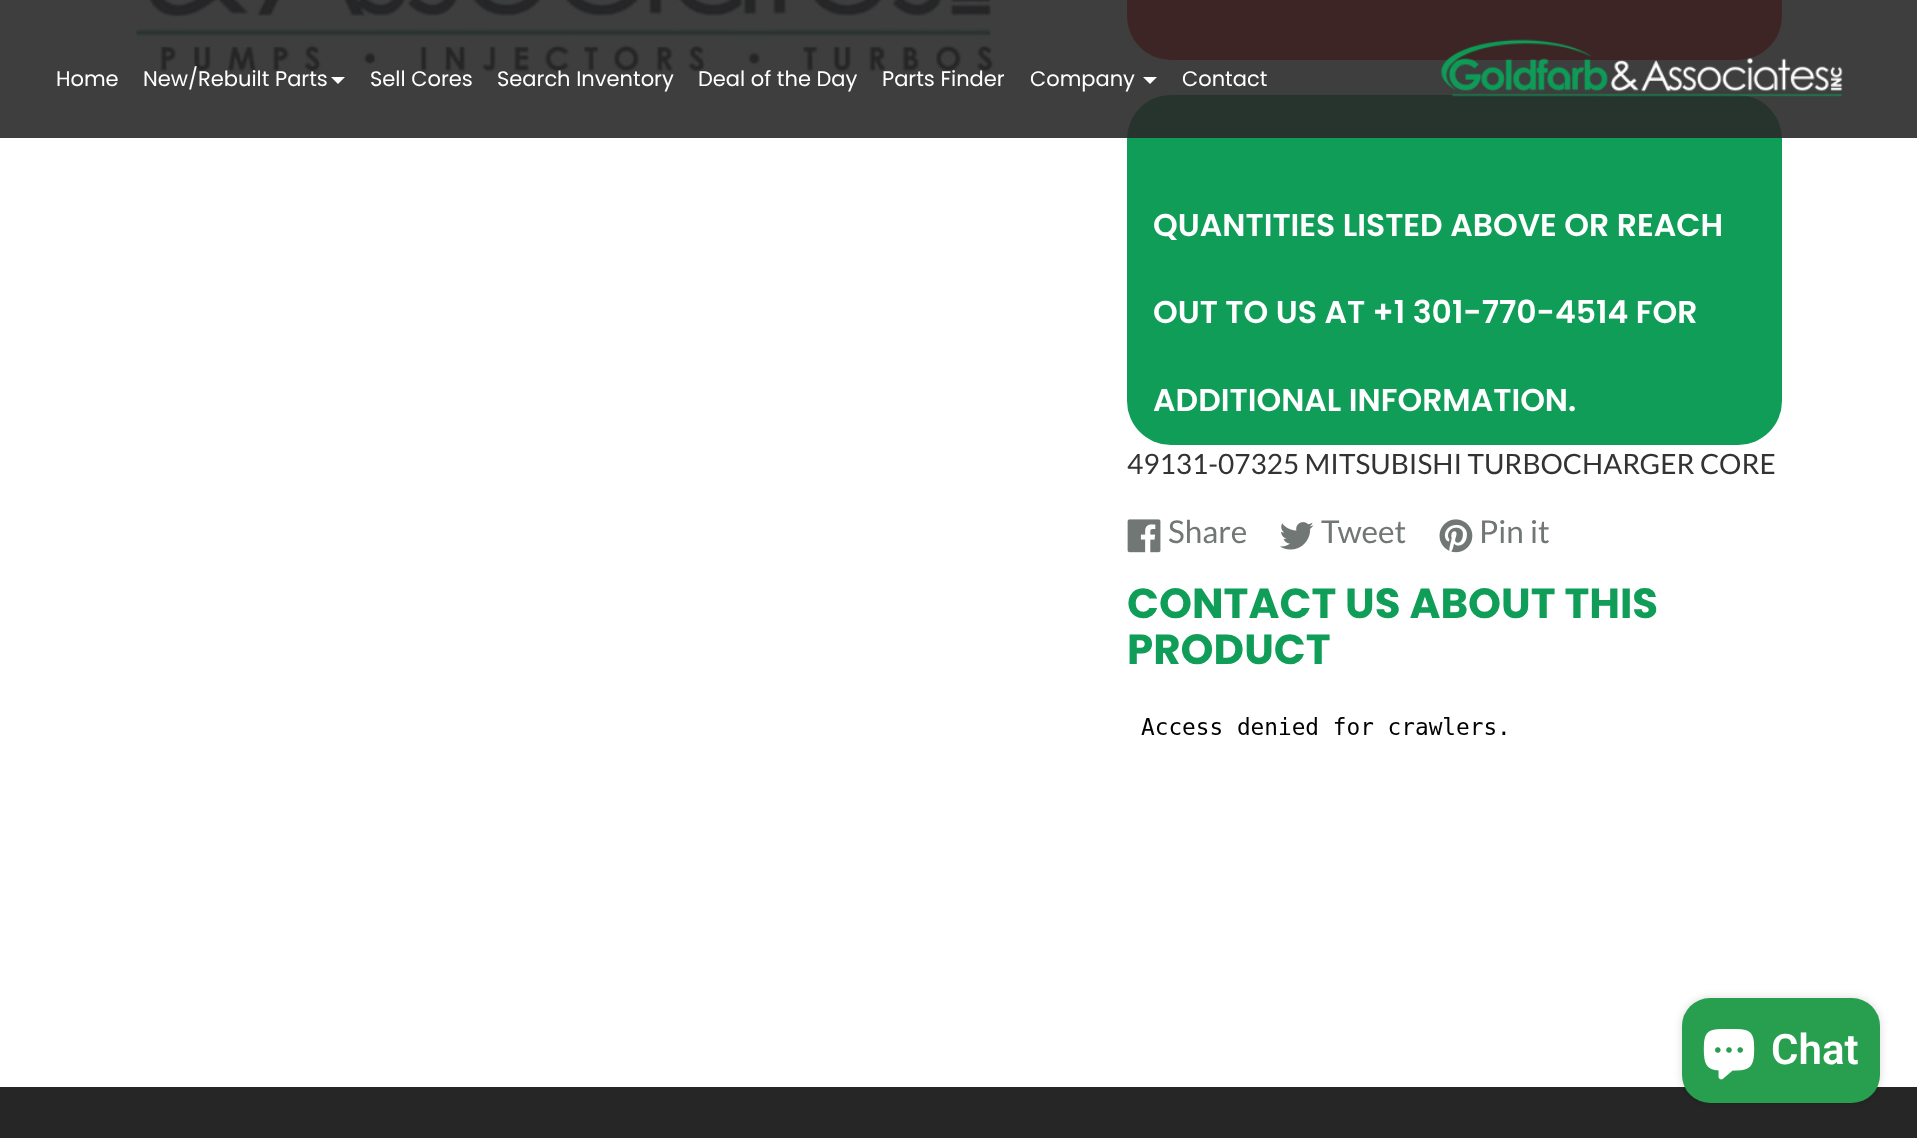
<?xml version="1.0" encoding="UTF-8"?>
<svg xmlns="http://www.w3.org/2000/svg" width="1917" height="1138">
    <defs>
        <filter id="blur1" x="-50%" y="-200%" width="200%" height="500%"><feGaussianBlur stdDeviation="4.5"/></filter>
    </defs>
    <rect width="100%" height="100%" fill="#FFFFFF"/>
    <image x="136" y="0" width="868" height="76" href="img_02.png"/>
    <rect x="1127" y="-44" width="655" height="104" rx="44" fill="#FF0000"/>
    <rect x="1127" y="95" width="655" height="350" rx="44" fill="#0F9D58"/>
    <rect x="0" y="0" width="1917" height="138" fill="#292929" fill-opacity="0.9"/>
    <text x="56" y="86" font-family="Poppins" font-size="21" fill="#FFFFFF">Home</text>
    <text x="143" y="86" font-family="Poppins" font-size="21" fill="#FFFFFF">New/Rebuilt Parts</text>
    <path d="M 331 77 H 345 L 338 84 Z" fill="#FFFFFF"/>
    <text x="370" y="86" font-family="Poppins" font-size="21" fill="#FFFFFF">Sell Cores</text>
    <text x="497" y="86" font-family="Poppins" font-size="21" fill="#FFFFFF">Search Inventory</text>
    <text x="698" y="86" font-family="Poppins" font-size="21" fill="#FFFFFF">Deal of the Day</text>
    <text x="882" y="86" font-family="Poppins" font-size="21" fill="#FFFFFF">Parts Finder</text>
    <text x="1030" y="86" font-family="Poppins" font-size="21" fill="#FFFFFF">Company</text>
    <path d="M 1143 77 H 1157 L 1150 84 Z" fill="#FFFFFF"/>
    <text x="1182" y="86" font-family="Poppins" font-size="21" fill="#FFFFFF">Contact</text>
    <image x="1440" y="39" width="403" height="58" href="img_01.png"/>
    <text x="1153" y="236" font-family="Poppins" font-size="31.5" font-weight="600" fill="#FFFFFF">QUANTITIES LISTED ABOVE OR REACH</text>
    <text x="1153" y="323" font-family="Poppins" font-size="31.5" font-weight="600" fill="#FFFFFF">OUT TO US AT +1 301-770-4514 FOR</text>
    <text x="1153" y="411" font-family="Poppins" font-size="31.5" font-weight="600" fill="#FFFFFF">ADDITIONAL INFORMATION.</text>
    <text x="1127" y="474" font-family="Lato" font-size="28" fill="#333333">49131-07325 MITSUBISHI TURBOCHARGER CORE</text>
    <image x="1127" y="519" width="34" height="34" href="img_03.png"/>
    <text x="1168" y="543" font-family="Lato" font-size="31.5" fill="#717775">Share</text>
    <image x="1280" y="522" width="34" height="28" href="img_04.png"/>
    <text x="1321" y="543" font-family="Lato" font-size="31.5" fill="#717775">Tweet</text>
    <image x="1439" y="519" width="34" height="34" href="img_05.png"/>
    <text x="1479" y="543" font-family="Lato" font-size="31.5" fill="#717775">Pin it</text>
    <text font-family="Poppins" font-size="42" font-weight="700" fill="#0F9D58">
        <tspan x="1127" y="618">CONTACT US ABOUT THIS</tspan>
        <tspan x="1127" y="664">PRODUCT</tspan>
    </text>
    <image x="1141" y="717" width="365" height="18" href="img_06.png"/>
    <rect x="0" y="1087" width="1917" height="51" fill="#262626"/>
    <rect x="1682" y="998" width="198" height="105" rx="28" fill="#000000" fill-opacity="0.15" filter="url(#blur1)"/>
    <rect x="1682" y="998" width="198" height="105" rx="28" fill="#279F4F"/>
    <image x="1703" y="1029" width="52" height="51" href="img_07.png"/>
    <text x="1771" y="1064" font-family="Roboto" font-size="42" font-weight="600" fill="#FFFFFF">Chat</text>
</svg>
